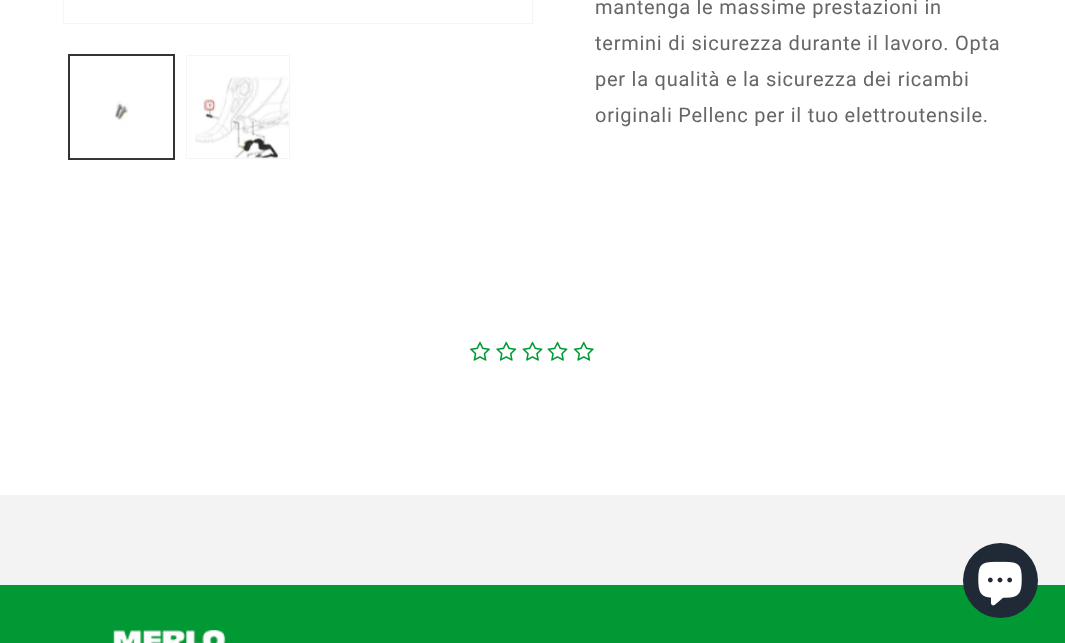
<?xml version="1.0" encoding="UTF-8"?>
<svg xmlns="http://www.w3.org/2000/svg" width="1065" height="643">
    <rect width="100%" height="100%" fill="#FFFFFF"/>
    <rect x="63.5" y="-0.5" width="469" height="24" fill="none" stroke="#F5F5F5"/>
    <rect x="68.5" y="54.5" width="106" height="105" fill="none" stroke="#333333"/>
    <rect x="69.5" y="55.5" width="104" height="103" fill="none" stroke="#333333"/>
    <image x="70" y="100" width="102" height="59" href="img_01.png"/>
    <rect x="186.5" y="55.5" width="103" height="103" fill="none" stroke="#F5F5F5"/>
    <image x="195" y="76" width="94" height="83" href="img_02.png"/>
    <text font-family="Roboto" font-size="20" letter-spacing="0.75" fill="#666666">
        <tspan x="595" y="14">mantenga le massime prestazioni in</tspan>
        <tspan x="595" y="50">termini di sicurezza durante il lavoro. Opta</tspan>
        <tspan x="595" y="86">per la qualità e la sicurezza dei ricambi</tspan>
        <tspan x="595" y="122">originali Pellenc per il tuo elettroutensile.</tspan>
    </text>
    <image x="470" y="341" width="20" height="20" href="img_03.png"/>
    <image x="496" y="341" width="21" height="20" href="img_04.png"/>
    <image x="522" y="341" width="21" height="20" href="img_05.png"/>
    <image x="547" y="341" width="21" height="20" href="img_05.png"/>
    <image x="573" y="341" width="21" height="20" href="img_06.png"/>
    <rect x="0" y="495" width="1065" height="90" fill="#F3F3F3"/>
    <rect x="0" y="585" width="1065" height="58" fill="#009933"/>
    <circle cx="1000.5" cy="580.5" r="37.5" fill="#202A36"/>
    <image x="978" y="561" width="44" height="45" href="img_07.png"/>
    <image x="113" y="630" width="113" height="13" href="img_08.png"/>
</svg>
